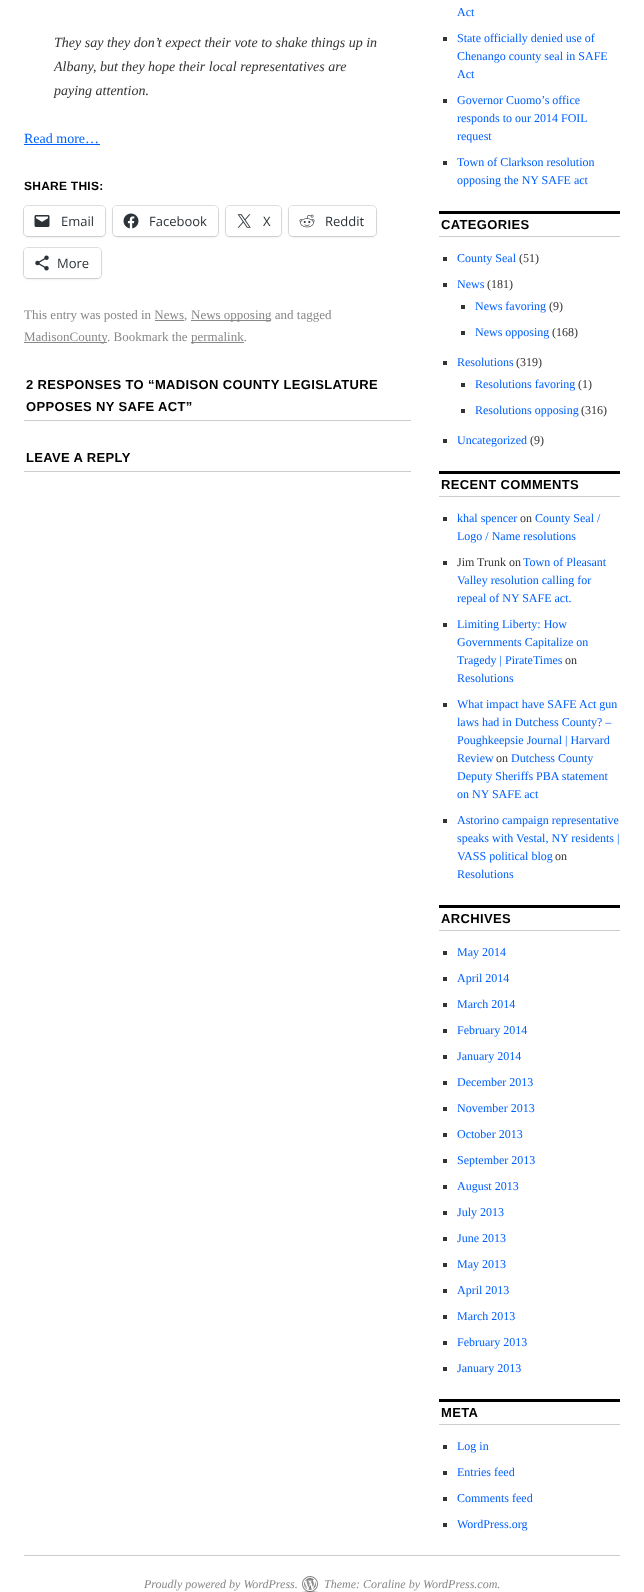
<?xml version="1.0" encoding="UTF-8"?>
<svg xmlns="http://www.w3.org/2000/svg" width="644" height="1592">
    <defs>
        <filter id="blur1" x="-50%" y="-200%" width="200%" height="500%"><feGaussianBlur stdDeviation="1"/></filter>
    </defs>
    <rect width="100%" height="100%" fill="#FFFFFF"/>
    <text font-family="Liberation Serif" font-size="14" font-style="italic" fill="#333333">
        <tspan x="54" y="47">They say they don’t expect their vote to shake things up in</tspan>
        <tspan x="54" y="71">Albany, but they hope their local representatives are</tspan>
        <tspan x="54" y="95">paying attention.</tspan>
    </text>
    <text x="24" y="143" font-family="Liberation Serif" font-size="14" fill="#0060FF">Read more…</text>
    <rect x="24" y="144" width="76" height="1" fill="#0060FF"/>
    <text x="24" y="190" font-family="Liberation Sans" font-size="12" font-weight="700" letter-spacing="0.25" fill="#000000">SHARE THIS:</text>
    <rect x="23.5" y="205.5" width="82" height="31" rx="4.5" fill="none" stroke="#E0E0E0"/>
    <rect x="24" y="207" width="81" height="30" rx="4" fill="#000000" fill-opacity="0.12" filter="url(#blur1)"/>
    <rect x="24" y="206" width="81" height="30" rx="4" fill="#FFFFFF"/>
    <image x="34" y="215" width="16" height="12" href="img_01.png"/>
    <text x="61" y="226" font-family="Open Sans" font-size="13" fill="#2C3338">Email</text>
    <rect x="112.5" y="205.5" width="106" height="31" rx="4.5" fill="none" stroke="#E0E0E0"/>
    <rect x="113" y="207" width="105" height="30" rx="4" fill="#000000" fill-opacity="0.12" filter="url(#blur1)"/>
    <rect x="113" y="206" width="105" height="30" rx="4" fill="#FFFFFF"/>
    <image x="123" y="213" width="16" height="16" href="img_02.png"/>
    <text x="149" y="226" font-family="Open Sans" font-size="13" fill="#2C3338">Facebook</text>
    <rect x="225.5" y="205.5" width="56" height="31" rx="4.5" fill="none" stroke="#E0E0E0"/>
    <rect x="226" y="207" width="55" height="30" rx="4" fill="#000000" fill-opacity="0.12" filter="url(#blur1)"/>
    <rect x="226" y="206" width="55" height="30" rx="4" fill="#FFFFFF"/>
    <image x="237" y="214" width="14" height="14" href="img_03.png"/>
    <text x="263" y="226" font-family="Open Sans" font-size="13" fill="#2C3338">X</text>
    <rect x="288.5" y="205.5" width="88" height="31" rx="4.5" fill="none" stroke="#E0E0E0"/>
    <rect x="289" y="207" width="87" height="30" rx="4" fill="#000000" fill-opacity="0.12" filter="url(#blur1)"/>
    <rect x="289" y="206" width="87" height="30" rx="4" fill="#FFFFFF"/>
    <image x="299" y="214" width="16" height="14" href="img_04.png"/>
    <text x="325" y="226" font-family="Open Sans" font-size="13" fill="#2C3338">Reddit</text>
    <rect x="23.5" y="247.5" width="78" height="31" rx="4.5" fill="none" stroke="#E0E0E0"/>
    <rect x="24" y="249" width="77" height="30" rx="4" fill="#000000" fill-opacity="0.12" filter="url(#blur1)"/>
    <rect x="24" y="248" width="77" height="30" rx="4" fill="#FFFFFF"/>
    <image x="35" y="255" width="14" height="16" href="img_05.png"/>
    <text x="57" y="268" font-family="Open Sans" font-size="13" fill="#2C3338">More</text>
    <text x="24" y="319" font-family="Liberation Serif" font-size="13" fill="#888888">This entry was posted in News,</text>
    <rect x="191" y="320" width="80" height="1" fill="#888888"/>
    <text x="191" y="319" font-family="Liberation Serif" font-size="13" fill="#888888">News opposing and tagged</text>
    <rect x="155" y="320" width="29" height="1" fill="#888888"/>
    <rect x="24" y="342" width="83" height="1" fill="#888888"/>
    <text x="24" y="341" font-family="Liberation Serif" font-size="13" fill="#888888">MadisonCounty</text>
    <text x="107" y="341" font-family="Liberation Serif" font-size="13" fill="#888888">. Bookmark the</text>
    <rect x="191" y="342" width="53" height="1" fill="#888888"/>
    <text x="191" y="341" font-family="Liberation Serif" font-size="13" fill="#888888">permalink.</text>
    <rect x="24" y="420" width="387" height="1" fill="#CCCCCC"/>
    <text font-family="Liberation Sans" font-size="13" font-weight="700" letter-spacing="0.35" fill="#000000">
        <tspan x="26" y="389">2 RESPONSES TO “MADISON COUNTY LEGISLATURE</tspan>
        <tspan x="26" y="411">OPPOSES NY SAFE ACT”</tspan>
    </text>
    <rect x="24" y="471" width="387" height="1" fill="#CCCCCC"/>
    <text x="26" y="462" font-family="Liberation Sans" font-size="13" font-weight="700" letter-spacing="0.35" fill="#000000">LEAVE A REPLY</text>
    <text x="457" y="16" font-family="Liberation Serif" font-size="12" fill="#0060FF">Act</text>
    <rect x="443" y="37" width="4" height="4" fill="#333333"/>
    <text font-family="Liberation Serif" font-size="12" fill="#0060FF">
        <tspan x="457" y="42">State officially denied use of</tspan>
        <tspan x="457" y="60">Chenango county seal in SAFE</tspan>
        <tspan x="457" y="78">Act</tspan>
    </text>
    <rect x="443" y="99" width="4" height="4" fill="#333333"/>
    <text font-family="Liberation Serif" font-size="12" fill="#0060FF">
        <tspan x="457" y="104">Governor Cuomo’s office</tspan>
        <tspan x="457" y="122">responds to our 2014 FOIL</tspan>
        <tspan x="457" y="140">request</tspan>
    </text>
    <rect x="443" y="161" width="4" height="4" fill="#333333"/>
    <text font-family="Liberation Serif" font-size="12" fill="#0060FF">
        <tspan x="457" y="166">Town of Clarkson resolution</tspan>
        <tspan x="457" y="184">opposing the NY SAFE act</tspan>
    </text>
    <rect x="439" y="211" width="181" height="3" fill="#000000"/>
    <rect x="439" y="236" width="181" height="1" fill="#CCCCCC"/>
    <text x="441" y="229" font-family="Liberation Sans" font-size="13" font-weight="700" letter-spacing="0.35" fill="#000000">CATEGORIES</text>
    <rect x="443" y="257" width="4" height="4" fill="#333333"/>
    <text x="457" y="262" font-family="Liberation Serif" font-size="12" fill="#0060FF">County Seal</text>
    <text x="519" y="262" font-family="Liberation Serif" font-size="12" fill="#333333">(51)</text>
    <rect x="443" y="283" width="4" height="4" fill="#333333"/>
    <text x="457" y="288" font-family="Liberation Serif" font-size="12" fill="#0060FF">News</text>
    <text x="487" y="288" font-family="Liberation Serif" font-size="12" fill="#333333">(181)</text>
    <rect x="461" y="305" width="4" height="4" fill="#333333"/>
    <text x="475" y="310" font-family="Liberation Serif" font-size="12" fill="#0060FF">News favoring</text>
    <text x="549" y="310" font-family="Liberation Serif" font-size="12" fill="#333333">(9)</text>
    <rect x="461" y="331" width="4" height="4" fill="#333333"/>
    <text x="475" y="336" font-family="Liberation Serif" font-size="12" fill="#0060FF">News opposing</text>
    <text x="552" y="336" font-family="Liberation Serif" font-size="12" fill="#333333">(168)</text>
    <rect x="443" y="361" width="4" height="4" fill="#333333"/>
    <text x="457" y="366" font-family="Liberation Serif" font-size="12" fill="#0060FF">Resolutions</text>
    <text x="516" y="366" font-family="Liberation Serif" font-size="12" fill="#333333">(319)</text>
    <rect x="461" y="383" width="4" height="4" fill="#333333"/>
    <text x="475" y="388" font-family="Liberation Serif" font-size="12" fill="#0060FF">Resolutions favoring</text>
    <text x="578" y="388" font-family="Liberation Serif" font-size="12" fill="#333333">(1)</text>
    <rect x="461" y="409" width="4" height="4" fill="#333333"/>
    <text x="475" y="414" font-family="Liberation Serif" font-size="12" fill="#0060FF">Resolutions opposing</text>
    <text x="581" y="414" font-family="Liberation Serif" font-size="12" fill="#333333">(316)</text>
    <rect x="443" y="439" width="4" height="4" fill="#333333"/>
    <text x="457" y="444" font-family="Liberation Serif" font-size="12" fill="#0060FF">Uncategorized</text>
    <text x="530" y="444" font-family="Liberation Serif" font-size="12" fill="#333333">(9)</text>
    <rect x="439" y="471" width="181" height="3" fill="#000000"/>
    <rect x="439" y="496" width="181" height="1" fill="#CCCCCC"/>
    <text x="441" y="489" font-family="Liberation Sans" font-size="13" font-weight="700" letter-spacing="0.35" fill="#000000">RECENT COMMENTS</text>
    <rect x="443" y="517" width="4" height="4" fill="#333333"/>
    <text x="457" y="522" font-family="Liberation Serif" font-size="12" fill="#0060FF">khal spencer</text>
    <text x="520" y="522" font-family="Liberation Serif" font-size="12" fill="#333333">on</text>
    <text x="535" y="522" font-family="Liberation Serif" font-size="12" fill="#0060FF">County Seal /</text>
    <text x="457" y="540" font-family="Liberation Serif" font-size="12" fill="#0060FF">Logo / Name resolutions</text>
    <rect x="443" y="561" width="4" height="4" fill="#333333"/>
    <text x="457" y="566" font-family="Liberation Serif" font-size="12" fill="#333333">Jim Trunk on</text>
    <text x="523" y="566" font-family="Liberation Serif" font-size="12" fill="#0060FF">Town of Pleasant</text>
    <text font-family="Liberation Serif" font-size="12" fill="#0060FF">
        <tspan x="457" y="584">Valley resolution calling for</tspan>
        <tspan x="457" y="602">repeal of NY SAFE act.</tspan>
    </text>
    <rect x="443" y="623" width="4" height="4" fill="#333333"/>
    <text font-family="Liberation Serif" font-size="12" fill="#0060FF">
        <tspan x="457" y="628">Limiting Liberty: How</tspan>
        <tspan x="457" y="646">Governments Capitalize on</tspan>
        <tspan x="457" y="664">Tragedy | PirateTimes</tspan>
    </text>
    <text x="565" y="664" font-family="Liberation Serif" font-size="12" fill="#333333">on</text>
    <text x="457" y="682" font-family="Liberation Serif" font-size="12" fill="#0060FF">Resolutions</text>
    <rect x="443" y="703" width="4" height="4" fill="#333333"/>
    <text font-family="Liberation Serif" font-size="12" fill="#0060FF">
        <tspan x="457" y="708">What impact have SAFE Act gun</tspan>
        <tspan x="457" y="726">laws had in Dutchess County? –</tspan>
        <tspan x="457" y="744">Poughkeepsie Journal | Harvard</tspan>
        <tspan x="457" y="762">Review</tspan>
    </text>
    <text x="496" y="762" font-family="Liberation Serif" font-size="12" fill="#333333">on</text>
    <text x="511" y="762" font-family="Liberation Serif" font-size="12" fill="#0060FF">Dutchess County</text>
    <text font-family="Liberation Serif" font-size="12" fill="#0060FF">
        <tspan x="457" y="780">Deputy Sheriffs PBA statement</tspan>
        <tspan x="457" y="798">on NY SAFE act</tspan>
    </text>
    <rect x="443" y="819" width="4" height="4" fill="#333333"/>
    <text font-family="Liberation Serif" font-size="12" fill="#0060FF">
        <tspan x="457" y="824">Astorino campaign representative</tspan>
        <tspan x="457" y="842">speaks with Vestal, NY residents |</tspan>
        <tspan x="457" y="860">VASS political blog</tspan>
    </text>
    <text x="555" y="860" font-family="Liberation Serif" font-size="12" fill="#333333">on</text>
    <text x="457" y="878" font-family="Liberation Serif" font-size="12" fill="#0060FF">Resolutions</text>
    <rect x="439" y="905" width="181" height="3" fill="#000000"/>
    <rect x="439" y="930" width="181" height="1" fill="#CCCCCC"/>
    <text x="441" y="923" font-family="Liberation Sans" font-size="13" font-weight="700" letter-spacing="0.35" fill="#000000">ARCHIVES</text>
    <rect x="443" y="951" width="4" height="4" fill="#333333"/>
    <text x="457" y="956" font-family="Liberation Serif" font-size="12" fill="#0060FF">May 2014</text>
    <rect x="443" y="977" width="4" height="4" fill="#333333"/>
    <text x="457" y="982" font-family="Liberation Serif" font-size="12" fill="#0060FF">April 2014</text>
    <rect x="443" y="1003" width="4" height="4" fill="#333333"/>
    <text x="457" y="1008" font-family="Liberation Serif" font-size="12" fill="#0060FF">March 2014</text>
    <rect x="443" y="1029" width="4" height="4" fill="#333333"/>
    <text x="457" y="1034" font-family="Liberation Serif" font-size="12" fill="#0060FF">February 2014</text>
    <rect x="443" y="1055" width="4" height="4" fill="#333333"/>
    <text x="457" y="1060" font-family="Liberation Serif" font-size="12" fill="#0060FF">January 2014</text>
    <rect x="443" y="1081" width="4" height="4" fill="#333333"/>
    <text x="457" y="1086" font-family="Liberation Serif" font-size="12" fill="#0060FF">December 2013</text>
    <rect x="443" y="1107" width="4" height="4" fill="#333333"/>
    <text x="457" y="1112" font-family="Liberation Serif" font-size="12" fill="#0060FF">November 2013</text>
    <rect x="443" y="1133" width="4" height="4" fill="#333333"/>
    <text x="457" y="1138" font-family="Liberation Serif" font-size="12" fill="#0060FF">October 2013</text>
    <rect x="443" y="1159" width="4" height="4" fill="#333333"/>
    <text x="457" y="1164" font-family="Liberation Serif" font-size="12" fill="#0060FF">September 2013</text>
    <rect x="443" y="1185" width="4" height="4" fill="#333333"/>
    <text x="457" y="1190" font-family="Liberation Serif" font-size="12" fill="#0060FF">August 2013</text>
    <rect x="443" y="1211" width="4" height="4" fill="#333333"/>
    <text x="457" y="1216" font-family="Liberation Serif" font-size="12" fill="#0060FF">July 2013</text>
    <rect x="443" y="1237" width="4" height="4" fill="#333333"/>
    <text x="457" y="1242" font-family="Liberation Serif" font-size="12" fill="#0060FF">June 2013</text>
    <rect x="443" y="1263" width="4" height="4" fill="#333333"/>
    <text x="457" y="1268" font-family="Liberation Serif" font-size="12" fill="#0060FF">May 2013</text>
    <rect x="443" y="1289" width="4" height="4" fill="#333333"/>
    <text x="457" y="1294" font-family="Liberation Serif" font-size="12" fill="#0060FF">April 2013</text>
    <rect x="443" y="1315" width="4" height="4" fill="#333333"/>
    <text x="457" y="1320" font-family="Liberation Serif" font-size="12" fill="#0060FF">March 2013</text>
    <rect x="443" y="1341" width="4" height="4" fill="#333333"/>
    <text x="457" y="1346" font-family="Liberation Serif" font-size="12" fill="#0060FF">February 2013</text>
    <rect x="443" y="1367" width="4" height="4" fill="#333333"/>
    <text x="457" y="1372" font-family="Liberation Serif" font-size="12" fill="#0060FF">January 2013</text>
    <rect x="439" y="1399" width="181" height="3" fill="#000000"/>
    <rect x="439" y="1424" width="181" height="1" fill="#CCCCCC"/>
    <text x="441" y="1417" font-family="Liberation Sans" font-size="13" font-weight="700" letter-spacing="0.35" fill="#000000">META</text>
    <rect x="443" y="1445" width="4" height="4" fill="#333333"/>
    <text x="457" y="1450" font-family="Liberation Serif" font-size="12" fill="#0060FF">Log in</text>
    <rect x="443" y="1471" width="4" height="4" fill="#333333"/>
    <text x="457" y="1476" font-family="Liberation Serif" font-size="12" fill="#0060FF">Entries feed</text>
    <rect x="443" y="1497" width="4" height="4" fill="#333333"/>
    <text x="457" y="1502" font-family="Liberation Serif" font-size="12" fill="#0060FF">Comments feed</text>
    <rect x="443" y="1523" width="4" height="4" fill="#333333"/>
    <text x="457" y="1528" font-family="Liberation Serif" font-size="12" fill="#0060FF">WordPress.org</text>
    <rect x="24" y="1555" width="596" height="1" fill="#CCCCCC"/>
    <image x="302" y="1576" width="16" height="16" href="img_06.png"/>
    <text x="144" y="1588" font-family="Liberation Serif" font-size="12" font-style="italic" fill="#888888">Proudly powered by WordPress.</text>
    <text x="324" y="1588" font-family="Liberation Serif" font-size="12" font-style="italic" fill="#888888">Theme: Coraline by WordPress.com.</text>
</svg>
